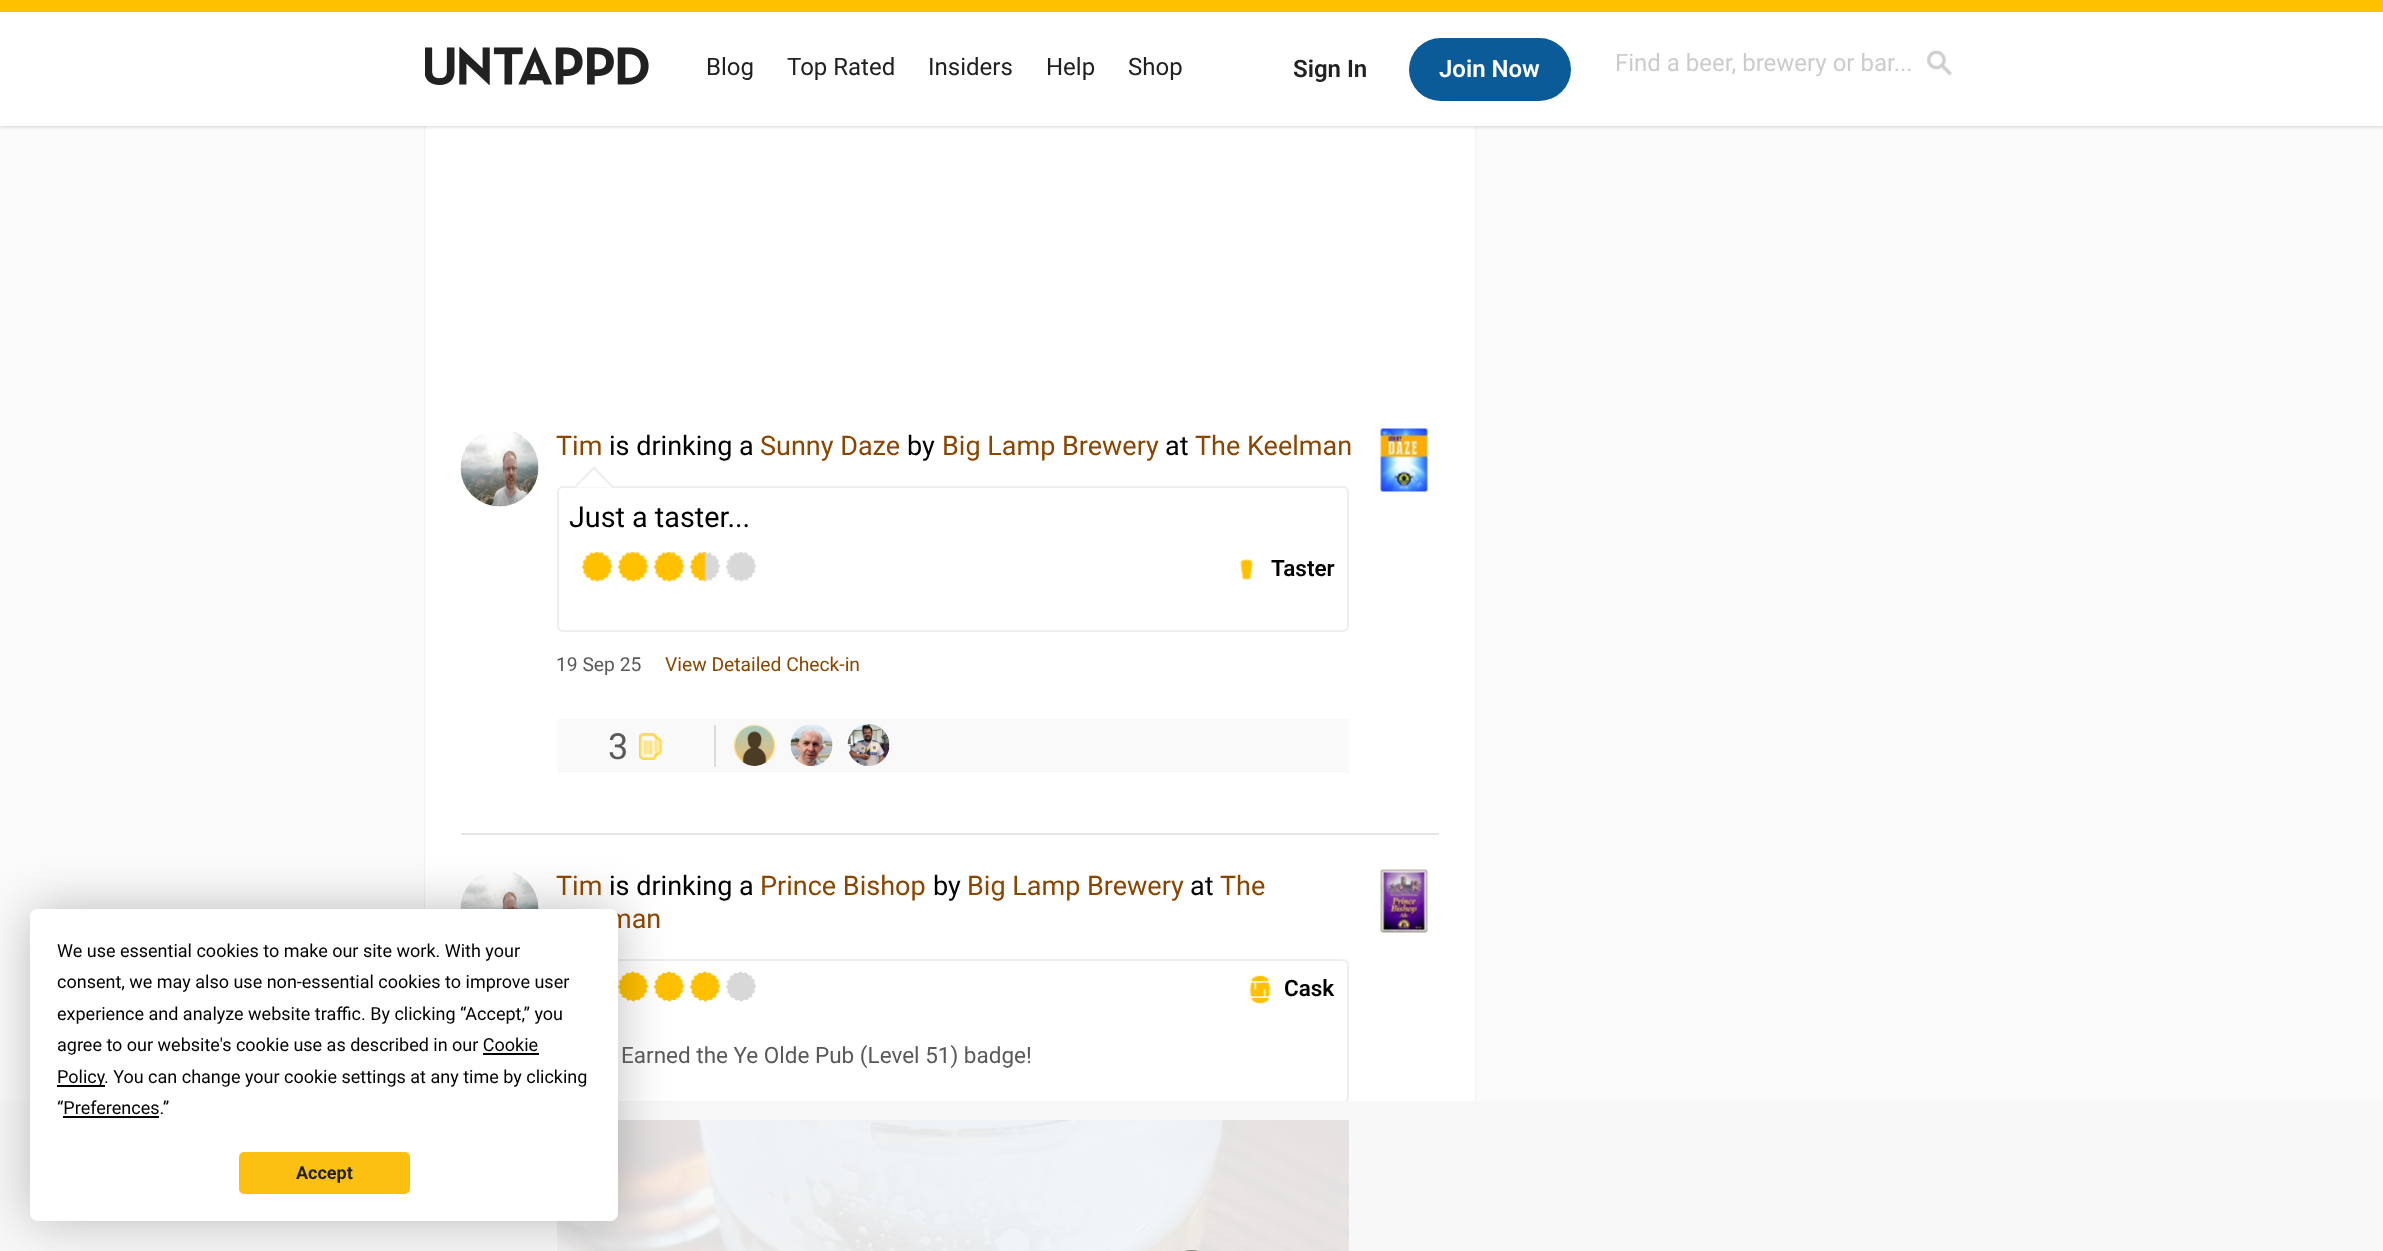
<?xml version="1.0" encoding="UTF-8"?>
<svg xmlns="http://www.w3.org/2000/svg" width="2383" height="1251">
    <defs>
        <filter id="blur1" x="-50%" y="-200%" width="200%" height="500%"><feGaussianBlur stdDeviation="1"/></filter>
        <filter id="blur2" x="-50%" y="-200%" width="200%" height="500%"><feGaussianBlur stdDeviation="26"/></filter>
    </defs>
    <rect width="100%" height="100%" fill="#FBFBFB"/>
    <rect x="425" y="-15" width="1050" height="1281" rx="12" fill="#000000" fill-opacity="0.1" filter="url(#blur1)"/>
    <rect x="425" y="126" width="1050" height="1125" fill="#FFFFFF"/>
    <rect x="0" y="2" width="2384" height="126" fill="#000000" fill-opacity="0.1" filter="url(#blur1)"/>
    <rect x="0" y="12" width="2383" height="114" fill="#FFFFFF"/>
    <rect x="0" y="0" width="2383" height="12" fill="#FFC000"/>
    <image x="425" y="47" width="224" height="38" href="img_01.png"/>
    <text x="706" y="75" font-family="Roboto" font-size="24" fill="#212121">Blog</text>
    <text x="787" y="75" font-family="Roboto" font-size="24" fill="#212121">Top Rated</text>
    <text x="928" y="75" font-family="Roboto" font-size="24" fill="#212121">Insiders</text>
    <text x="1046" y="75" font-family="Roboto" font-size="24" fill="#212121">Help</text>
    <text x="1128" y="75" font-family="Roboto" font-size="24" fill="#212121">Shop</text>
    <image x="1927" y="50" width="25" height="26" href="img_03.png"/>
    <image x="1927" y="50" width="25" height="26" href="img_02.png"/>
    <text x="1615" y="71" font-family="Roboto" font-size="24" fill="#CCCCCC">Find a beer, brewery or bar...</text>
    <text x="1293" y="77" font-family="Roboto" font-size="24" font-weight="600" fill="#212121">Sign In</text>
    <rect x="1409" y="38" width="162" height="63" rx="31.5" fill="#0B5B99"/>
    <text x="1439" y="77" font-family="Roboto" font-size="24" font-weight="600" fill="#FFFFFF">Join Now</text>
    <rect x="461" y="833" width="978" height="2" fill="#E5E5E5"/>
    <image x="460" y="872" width="79" height="37" href="img_14.png"/>
    <rect x="558" y="960" width="790" height="142" rx="5" fill="none" stroke="#EEEEEE" stroke-width="2"/>
    <image x="618" y="971" width="31" height="31" href="img_16.png"/>
    <image x="653" y="971" width="32" height="31" href="img_17.png"/>
    <image x="689" y="971" width="32" height="31" href="img_18.png"/>
    <image x="557" y="1120" width="792" height="131" href="img_21.png"/>
    <rect x="0" y="1101" width="2383" height="150" fill="#F7F7F7" fill-opacity="0.9"/>
    <rect x="30" y="909" width="588" height="312" rx="8" fill="#000000" fill-opacity="0.25" filter="url(#blur2)"/>
    <text x="608" y="928" font-family="Roboto" font-size="27" fill="#8A4500">man</text>
    <rect x="30" y="909" width="588" height="312" rx="8" fill="#FFFFFF"/>
    <text font-family="Roboto" font-size="18" fill="#000000">
        <tspan x="57" y="957">We use essential cookies to make our site work. With your</tspan>
        <tspan x="57" y="988">consent, we may also use non-essential cookies to improve user</tspan>
        <tspan x="57" y="1020">experience and analyze website traffic. By clicking “Accept,” you</tspan>
        <tspan x="57" y="1051">agree to our website's cookie use as described in our Cookie</tspan>
    </text>
    <rect x="57" y="1085" width="48" height="2" fill="#000000"/>
    <text x="57" y="1083" font-family="Roboto" font-size="18" fill="#000000">Policy</text>
    <rect x="483" y="1053" width="56" height="2" fill="#000000"/>
    <text x="104" y="1083" font-family="Roboto" font-size="18" fill="#000000">. You can change your cookie settings at any time by clicking</text>
    <text x="57" y="1114" font-family="Roboto" font-size="18" fill="#000000">“Preferences.”</text>
    <rect x="63" y="1116" width="96" height="2" fill="#000000"/>
    <rect x="240" y="1153" width="169" height="40" rx="4" fill="#FCC013" stroke="#FCC013" stroke-width="2"/>
    <text x="296" y="1179" font-family="Roboto" font-size="18" font-weight="700" fill="#212121">Accept</text>
    <image x="460" y="431" width="79" height="76" href="img_04.png"/>
    <text x="556" y="455" font-family="Roboto" font-size="27" fill="#8A4500">Tim</text>
    <text x="609" y="455" font-family="Roboto" font-size="27" fill="#000000">is drinking a</text>
    <text x="760" y="455" font-family="Roboto" font-size="27" fill="#8A4500">Sunny Daze</text>
    <text x="907" y="455" font-family="Roboto" font-size="27" fill="#000000">by</text>
    <text x="942" y="455" font-family="Roboto" font-size="27" fill="#8A4500">Big Lamp Brewery</text>
    <text x="1165" y="455" font-family="Roboto" font-size="27" fill="#000000">at</text>
    <text x="1195" y="455" font-family="Roboto" font-size="27" fill="#8A4500">The Keelman</text>
    <image x="1379" y="428" width="50" height="64" href="img_05.png"/>
    <rect x="558" y="487" width="790" height="144" rx="5" fill="none" stroke="#EEEEEE" stroke-width="2"/>
    <path d="M 615 488 H 573 L 594 466 Z" fill="#EEEEEE"/>
    <path d="M 612 487.5 H 576 L 594 469.5 Z" fill="#FFFFFF"/>
    <text x="569" y="527" font-family="Roboto" font-size="28.75" fill="#000000">Just a taster...</text>
    <image x="581" y="552" width="32" height="30" href="img_06.png"/>
    <image x="617" y="552" width="32" height="30" href="img_06.png"/>
    <image x="653" y="552" width="32" height="30" href="img_06.png"/>
    <image x="689" y="552" width="32" height="30" href="img_07.png"/>
    <image x="725" y="552" width="32" height="30" href="img_08.png"/>
    <image x="1240" y="559" width="13" height="21" href="img_09.png"/>
    <text x="1271" y="576" font-family="Roboto" font-size="22.5" font-weight="600" fill="#000000">Taster</text>
    <text x="556" y="671" font-family="Roboto" font-size="19.25" fill="#595959">19 Sep 25</text>
    <text x="665" y="671" font-family="Roboto" font-size="19.25" fill="#8A4500">View Detailed Check-in</text>
    <rect x="557" y="719" width="792" height="54" fill="#F9F9F9"/>
    <text x="608" y="759" font-family="Roboto" font-size="36" fill="#595959">3</text>
    <image x="639" y="733" width="23" height="27" href="img_10.png"/>
    <rect x="714" y="725" width="2" height="42" fill="#DDDDDD"/>
    <image x="733" y="724" width="43" height="42" href="img_11.png"/>
    <image x="790" y="724" width="43" height="42" href="img_12.png"/>
    <image x="847" y="724" width="43" height="42" href="img_13.png"/>
    <text x="556" y="895" font-family="Roboto" font-size="27" fill="#8A4500">Tim</text>
    <text x="609" y="895" font-family="Roboto" font-size="27" fill="#000000">is drinking a</text>
    <text x="760" y="895" font-family="Roboto" font-size="27" fill="#8A4500">Prince Bishop</text>
    <text x="933" y="895" font-family="Roboto" font-size="27" fill="#000000">by</text>
    <text x="967" y="895" font-family="Roboto" font-size="27" fill="#8A4500">Big Lamp Brewery</text>
    <text x="1190" y="895" font-family="Roboto" font-size="27" fill="#000000">at</text>
    <text x="1220" y="895" font-family="Roboto" font-size="27" fill="#8A4500">The</text>
    <image x="1380" y="869" width="48" height="64" href="img_15.png"/>
    <image x="725" y="971" width="32" height="31" href="img_19.png"/>
    <image x="1249" y="975" width="22" height="29" href="img_20.png"/>
    <text x="1284" y="996" font-family="Roboto" font-size="22.5" font-weight="600" fill="#000000">Cask</text>
    <text x="621" y="1063" font-family="Roboto" font-size="22.5" fill="#595959">Earned the Ye Olde Pub (Level 51) badge!</text>
    <rect x="1176" y="1251" width="31" height="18" rx="15.5" fill="none" stroke="#F4F4F2" stroke-width="2"/>
    <rect x="1176" y="1251" width="31" height="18" rx="15.5" fill="none" stroke="#888888" stroke-width="2"/>
</svg>
